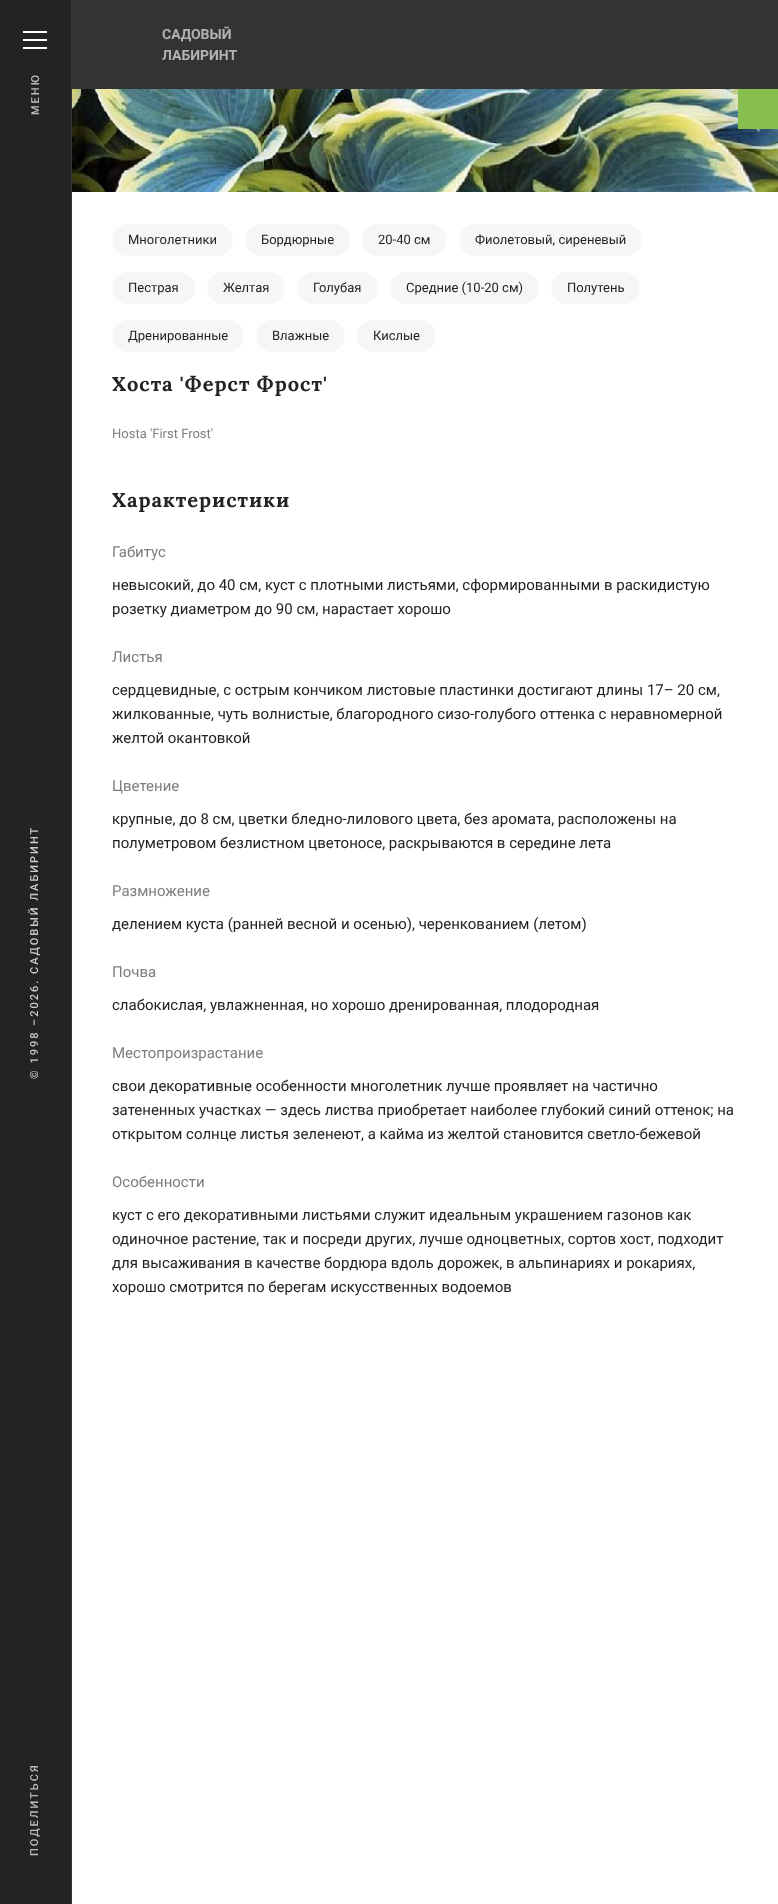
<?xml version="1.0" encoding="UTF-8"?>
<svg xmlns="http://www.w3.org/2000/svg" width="778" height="1904">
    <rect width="100%" height="100%" fill="#FFFFFF"/>
    <rect x="72" y="0" width="706" height="89" fill="#333333"/>
    <text font-family="Roboto" font-size="14" font-weight="700" fill="#B3B3B3">
        <tspan x="162" y="39">САДОВЫЙ</tspan>
        <tspan x="162" y="60">ЛАБИРИНТ</tspan>
    </text>
    <rect x="0" y="0" width="71" height="1904" fill="#232323"/>
    <rect x="71" y="0" width="1" height="1904" fill="#333333"/>
    <rect x="23" y="31" width="24" height="2" fill="#FFFFFF"/>
    <rect x="23" y="39" width="24" height="2" fill="#FFFFFF"/>
    <rect x="23" y="47" width="24" height="2" fill="#FFFFFF"/>
    <text x="39" y="115" transform="rotate(-90 39 115)" font-family="Roboto" font-size="11" font-weight="500" letter-spacing="2" fill="#BBBBBB">МЕНЮ</text>
    <text x="38" y="974" transform="rotate(-90 38 974)" font-family="Roboto" font-size="11" font-weight="500" letter-spacing="2" fill="#CCCCCE">САДОВЫЙ ЛАБИРИНТ</text>
    <text x="38" y="1079" transform="rotate(-90 38 1079)" font-family="Roboto" font-size="11" font-weight="500" letter-spacing="2" fill="#CCCCCE">© 1998 –2026.</text>
    <text x="38" y="1856" transform="rotate(-90 38 1856)" font-family="Roboto" font-size="11" font-weight="500" letter-spacing="2" fill="#BBBBBB">ПОДЕЛИТЬСЯ</text>
    <image x="72" y="89" width="706" height="103" href="img_01.png"/>
    <rect x="738" y="89" width="40" height="40" fill="#88BE4E"/>
    <rect x="112" y="224" width="121" height="32" rx="16" fill="#F5F6F8"/>
    <text x="128" y="244" font-family="Roboto" font-size="13" fill="#232323">Многолетники</text>
    <rect x="245" y="224" width="105" height="32" rx="16" fill="#F5F6F8"/>
    <text x="261" y="244" font-family="Roboto" font-size="13" fill="#232323">Бордюрные</text>
    <rect x="362" y="224" width="85" height="32" rx="16" fill="#F5F6F8"/>
    <text x="378" y="244" font-family="Roboto" font-size="13" fill="#232323">20-40 см</text>
    <rect x="459" y="224" width="183" height="32" rx="16" fill="#F5F6F8"/>
    <text x="475" y="244" font-family="Roboto" font-size="13" fill="#232323">Фиолетовый, сиреневый</text>
    <rect x="112" y="272" width="83" height="32" rx="16" fill="#F5F6F8"/>
    <text x="128" y="292" font-family="Roboto" font-size="13" fill="#232323">Пестрая</text>
    <rect x="207" y="272" width="78" height="32" rx="16" fill="#F5F6F8"/>
    <text x="223" y="292" font-family="Roboto" font-size="13" fill="#232323">Желтая</text>
    <rect x="297" y="272" width="81" height="32" rx="16" fill="#F5F6F8"/>
    <text x="313" y="292" font-family="Roboto" font-size="13" fill="#232323">Голубая</text>
    <rect x="390" y="272" width="149" height="32" rx="16" fill="#F5F6F8"/>
    <text x="406" y="292" font-family="Roboto" font-size="13" fill="#232323">Средние (10-20 см)</text>
    <rect x="551" y="272" width="89" height="32" rx="16" fill="#F5F6F8"/>
    <text x="567" y="292" font-family="Roboto" font-size="13" fill="#232323">Полутень</text>
    <rect x="112" y="320" width="132" height="32" rx="16" fill="#F5F6F8"/>
    <text x="128" y="340" font-family="Roboto" font-size="13" fill="#232323">Дренированные</text>
    <rect x="256" y="320" width="89" height="32" rx="16" fill="#F5F6F8"/>
    <text x="272" y="340" font-family="Roboto" font-size="13" fill="#232323">Влажные</text>
    <rect x="357" y="320" width="79" height="32" rx="16" fill="#F5F6F8"/>
    <text x="373" y="340" font-family="Roboto" font-size="13" fill="#232323">Кислые</text>
    <text x="112" y="391" font-family="Lora" font-size="20" font-weight="700" letter-spacing="1" fill="#232323">Хоста 'Ферст Фрост'</text>
    <text x="112" y="438" font-family="Roboto" font-size="13" fill="#7D7D7D">Hosta 'First Frost'</text>
    <text x="112" y="507" font-family="Lora" font-size="20" font-weight="700" letter-spacing="1" fill="#232323">Характеристики</text>
    <text x="112" y="557" font-family="Roboto" font-size="15" fill="#7D7D7D">Габитус</text>
    <text font-family="Roboto" font-size="15" fill="#232323">
        <tspan x="112" y="590">невысокий, до 40 см, куст с плотными листьями, сформированными в раскидистую</tspan>
        <tspan x="112" y="614">розетку диаметром до 90 см, нарастает хорошо</tspan>
    </text>
    <text x="112" y="662" font-family="Roboto" font-size="15" fill="#7D7D7D">Листья</text>
    <text font-family="Roboto" font-size="15" fill="#232323">
        <tspan x="112" y="695">сердцевидные, с острым кончиком листовые пластинки достигают длины 17– 20 см,</tspan>
        <tspan x="112" y="719">жилкованные, чуть волнистые, благородного сизо-голубого оттенка с неравномерной</tspan>
        <tspan x="112" y="743">желтой окантовкой</tspan>
    </text>
    <text x="112" y="791" font-family="Roboto" font-size="15" fill="#7D7D7D">Цветение</text>
    <text font-family="Roboto" font-size="15" fill="#232323">
        <tspan x="112" y="824">крупные, до 8 см, цветки бледно-лилового цвета, без аромата, расположены на</tspan>
        <tspan x="112" y="848">полуметровом безлистном цветоносе, раскрываются в середине лета</tspan>
    </text>
    <text x="112" y="896" font-family="Roboto" font-size="15" fill="#7D7D7D">Размножение</text>
    <text x="112" y="929" font-family="Roboto" font-size="15" fill="#232323">делением куста (ранней весной и осенью), черенкованием (летом)</text>
    <text x="112" y="977" font-family="Roboto" font-size="15" fill="#7D7D7D">Почва</text>
    <text x="112" y="1010" font-family="Roboto" font-size="15" fill="#232323">слабокислая, увлажненная, но хорошо дренированная, плодородная</text>
    <text x="112" y="1058" font-family="Roboto" font-size="15" fill="#7D7D7D">Местопроизрастание</text>
    <text font-family="Roboto" font-size="15" fill="#232323">
        <tspan x="112" y="1091">свои декоративные особенности многолетник лучше проявляет на частично</tspan>
        <tspan x="112" y="1115">затененных участках — здесь листва приобретает наиболее глубокий синий оттенок; на</tspan>
        <tspan x="112" y="1139">открытом солнце листья зеленеют, а кайма из желтой становится светло-бежевой</tspan>
    </text>
    <text x="112" y="1187" font-family="Roboto" font-size="15" fill="#7D7D7D">Особенности</text>
    <text font-family="Roboto" font-size="15" fill="#232323">
        <tspan x="112" y="1220">куст с его декоративными листьями служит идеальным украшением газонов как</tspan>
        <tspan x="112" y="1244">одиночное растение, так и посреди других, лучше одноцветных, сортов хост, подходит</tspan>
        <tspan x="112" y="1268">для высаживания в качестве бордюра вдоль дорожек, в альпинариях и рокариях,</tspan>
        <tspan x="112" y="1292">хорошо смотрится по берегам искусственных водоемов</tspan>
    </text>
</svg>
